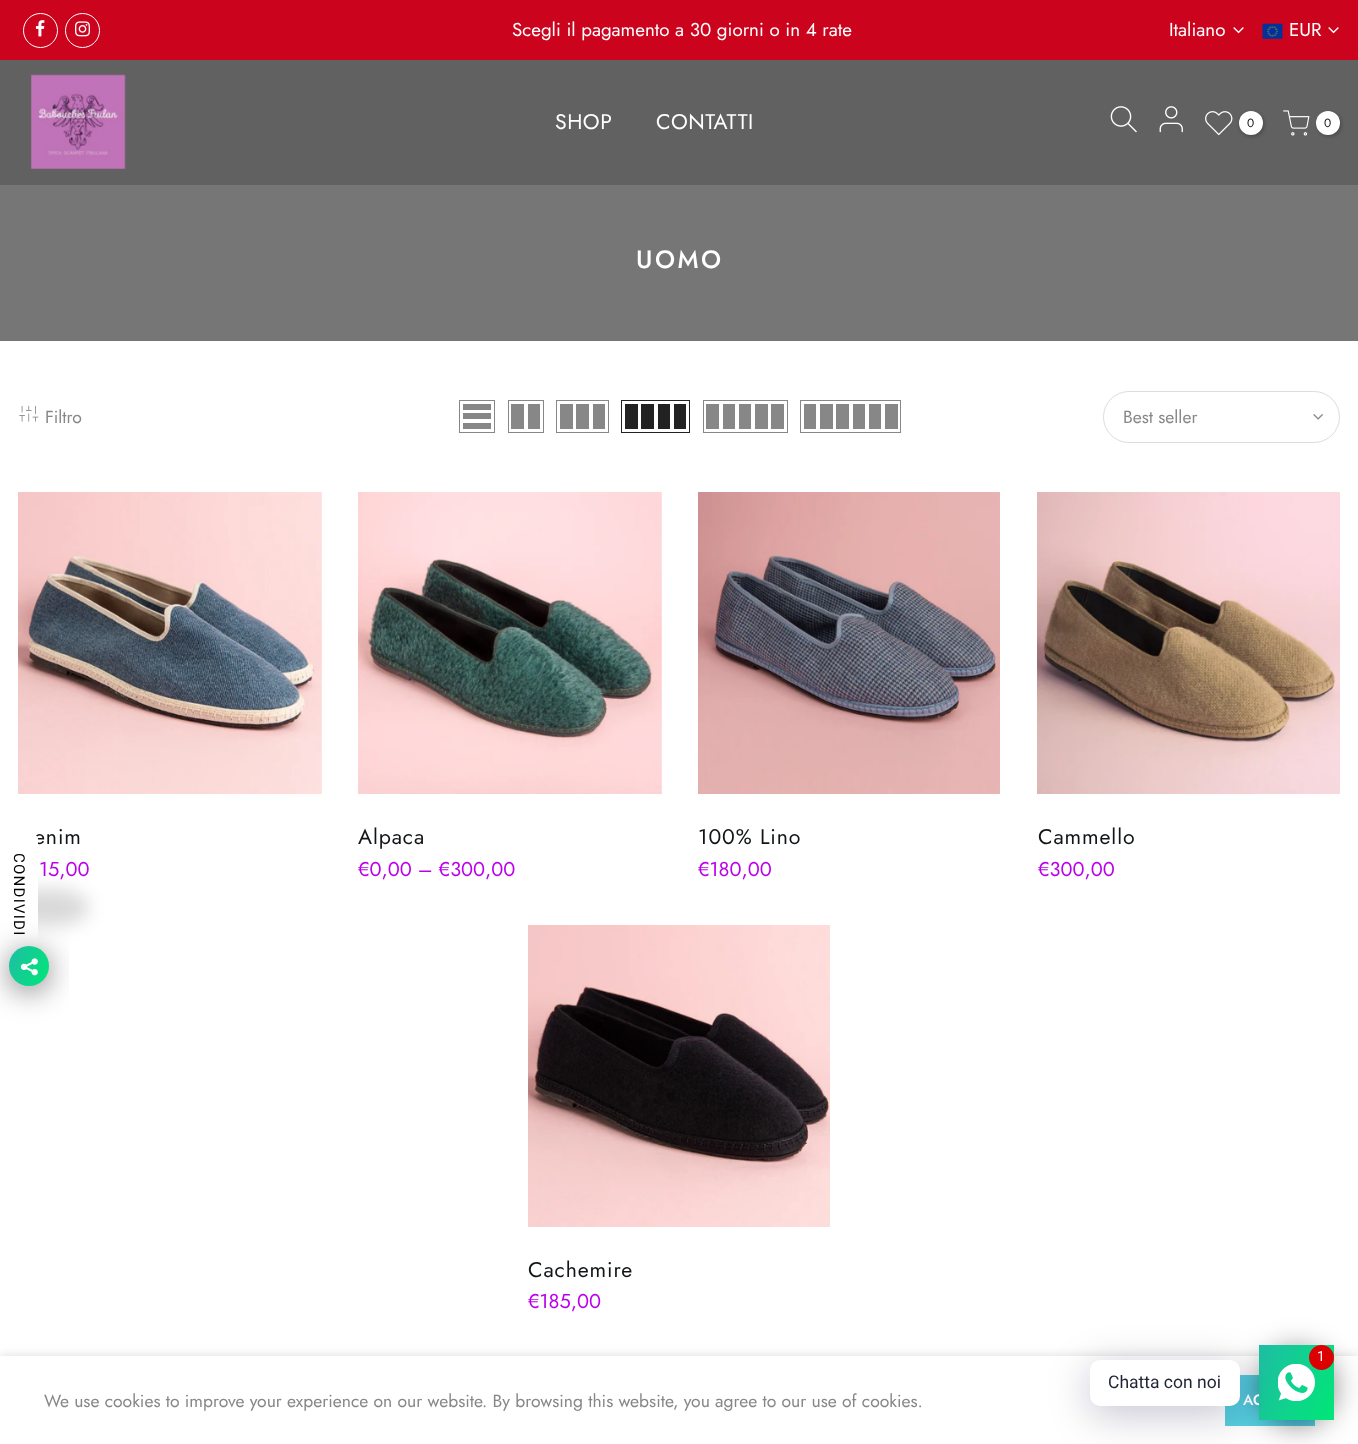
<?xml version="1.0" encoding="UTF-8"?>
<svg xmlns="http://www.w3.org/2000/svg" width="1358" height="1444">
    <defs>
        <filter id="blur1" x="-50%" y="-200%" width="200%" height="500%"><feGaussianBlur stdDeviation="2"/></filter>
        <filter id="blur2" x="-50%" y="-200%" width="200%" height="500%"><feGaussianBlur stdDeviation="9"/></filter>
        <filter id="blur3" x="-50%" y="-200%" width="200%" height="500%"><feGaussianBlur stdDeviation="15"/></filter>
        <linearGradient id="g1" gradientUnits="userSpaceOnUse" x1="4.7" y1="955" x2="53" y2="977"><stop offset="0" stop-color="#1EBEA5"/><stop offset="1" stop-color="#01E677"/></linearGradient>
        <filter id="blur4" x="-50%" y="-200%" width="200%" height="500%"><feGaussianBlur stdDeviation="5.5"/></filter>
        <linearGradient id="g2" gradientUnits="userSpaceOnUse" x1="1251" y1="1361" x2="1341" y2="1404"><stop offset="0" stop-color="#1EBEA5"/><stop offset="1" stop-color="#01E677"/></linearGradient>
        <filter id="blur5" x="-50%" y="-200%" width="200%" height="500%"><feGaussianBlur stdDeviation="20"/></filter>
    </defs>
    <rect width="100%" height="100%" fill="#FFFFFF"/>
    <rect x="0" y="0" width="1358" height="60" fill="#CB031D"/>
    <circle cx="40.5" cy="30.5" r="17" fill="none" stroke="#FFFFFF"/>
    <image x="35" y="20" width="10" height="17" href="img_01.png"/>
    <circle cx="82.5" cy="30.5" r="17" fill="none" stroke="#FFFFFF"/>
    <image x="75" y="21" width="15" height="16" href="img_02.png"/>
    <text x="512" y="36" font-family="Jost" font-size="18.75" fill="#FFFFFF">Scegli il pagamento a 30 giorni o in 4 rate</text>
    <text x="1169" y="36" font-family="Jost" font-size="18.75" fill="#FFFFFF">Italiano</text>
    <image x="1233" y="27" width="11" height="7" href="img_03.png"/>
    <image x="1262" y="23" width="21" height="16" href="img_04.png"/>
    <text x="1289" y="36" font-family="Jost" font-size="18.75" fill="#FFFFFF">EUR</text>
    <image x="1328" y="27" width="11" height="7" href="img_03.png"/>
    <rect x="0" y="60" width="1358" height="125" fill="#616161"/>
    <image x="31" y="74" width="95" height="95" href="img_05.png"/>
    <text x="555" y="129" font-family="Jost" font-size="21.25" letter-spacing="0.5" fill="#FFFFFF">SHOP</text>
    <text x="656" y="129" font-family="Jost" font-size="21.25" letter-spacing="0.5" fill="#FFFFFF">CONTATTI</text>
    <image x="1110" y="106" width="27" height="27" href="img_06.png"/>
    <image x="1159" y="106" width="24" height="27" href="img_07.png"/>
    <image x="1205" y="111" width="28" height="25" href="img_08.png"/>
    <rect x="1240" y="113" width="24" height="23" rx="11.5" fill="#000000" fill-opacity="0.3" filter="url(#blur1)"/>
    <circle cx="1251" cy="123" r="12" fill="#FFFFFF"/>
    <text x="1247" y="127" font-family="Jost" font-size="12" fill="#111517">0</text>
    <image x="1283" y="110" width="27" height="26" href="img_09.png"/>
    <rect x="1318" y="113" width="23" height="23" rx="11.5" fill="#000000" fill-opacity="0.3" filter="url(#blur1)"/>
    <circle cx="1328" cy="123" r="12" fill="#FFFFFF"/>
    <text x="1324" y="127" font-family="Jost" font-size="12" fill="#111517">0</text>
    <rect x="0" y="185" width="1358" height="156" fill="#767676"/>
    <text x="636" y="268" font-family="Jost" font-size="25" font-weight="500" letter-spacing="2.5" fill="#FFFFFF">UOMO</text>
    <image x="19" y="405" width="20" height="17" href="img_10.png"/>
    <text x="45" y="423" font-family="Jost" font-size="17.5" fill="#878787">Filtro</text>
    <rect x="459.5" y="400.5" width="35" height="32" fill="none" stroke="#878787"/>
    <rect x="463" y="423" width="28" height="6" fill="#878787"/>
    <rect x="463" y="413" width="28" height="6" fill="#878787"/>
    <rect x="463" y="404" width="28" height="6" fill="#878787"/>
    <rect x="508.5" y="400.5" width="35" height="32" fill="none" stroke="#878787"/>
    <rect x="528" y="404" width="12" height="25" fill="#878787"/>
    <rect x="511" y="404" width="13" height="25" fill="#878787"/>
    <rect x="556.5" y="400.5" width="52" height="32" fill="none" stroke="#878787"/>
    <rect x="593" y="404" width="12" height="25" fill="#878787"/>
    <rect x="576" y="404" width="13" height="25" fill="#878787"/>
    <rect x="560" y="404" width="13" height="25" fill="#878787"/>
    <rect x="621.5" y="400.5" width="68" height="32" fill="none" stroke="#222222"/>
    <rect x="674" y="404" width="12" height="25" fill="#222222"/>
    <rect x="658" y="404" width="12" height="25" fill="#222222"/>
    <rect x="641" y="404" width="13" height="25" fill="#222222"/>
    <rect x="625" y="404" width="13" height="25" fill="#222222"/>
    <rect x="703.5" y="400.5" width="84" height="32" fill="none" stroke="#878787"/>
    <rect x="771" y="404" width="13" height="25" fill="#878787"/>
    <rect x="755" y="404" width="13" height="25" fill="#878787"/>
    <rect x="739" y="404" width="12" height="25" fill="#878787"/>
    <rect x="723" y="404" width="12" height="25" fill="#878787"/>
    <rect x="706" y="404" width="13" height="25" fill="#878787"/>
    <rect x="800.5" y="400.5" width="100" height="32" fill="none" stroke="#878787"/>
    <rect x="885" y="404" width="13" height="25" fill="#878787"/>
    <rect x="869" y="404" width="12" height="25" fill="#878787"/>
    <rect x="853" y="404" width="12" height="25" fill="#878787"/>
    <rect x="836" y="404" width="13" height="25" fill="#878787"/>
    <rect x="820" y="404" width="13" height="25" fill="#878787"/>
    <rect x="804" y="404" width="12" height="25" fill="#878787"/>
    <rect x="1103.5" y="391.5" width="236" height="51" rx="25.5" fill="none" stroke="#DDDDDD"/>
    <text x="1123" y="423" font-family="Jost" font-size="17.5" fill="#878787">Best seller</text>
    <image x="1313" y="414" width="10" height="6" href="img_11.png"/>
    <image x="18" y="492" width="304" height="302" href="img_12.png"/>
    <text x="34" y="844" font-family="Jost" font-size="21.25" letter-spacing="0.9" fill="#111517">enim</text>
    <text x="39" y="876" font-family="Jost" font-size="20" fill="#BB01EC">15,00</text>
    <image x="358" y="492" width="304" height="302" href="img_13.png"/>
    <text x="358" y="844" font-family="Jost" font-size="21.25" letter-spacing="0.9" fill="#111517">Alpaca</text>
    <text x="358" y="876" font-family="Jost" font-size="20" fill="#BB01EC">€0,00 – €300,00</text>
    <image x="698" y="492" width="302" height="302" href="img_14.png"/>
    <text x="698" y="844" font-family="Jost" font-size="21.25" letter-spacing="0.9" fill="#111517">100% Lino</text>
    <text x="698" y="876" font-family="Jost" font-size="20" fill="#BB01EC">€180,00</text>
    <image x="1037" y="492" width="303" height="302" href="img_15.png"/>
    <text x="1038" y="844" font-family="Jost" font-size="21.25" letter-spacing="0.9" fill="#111517">Cammello</text>
    <text x="1038" y="876" font-family="Jost" font-size="20" fill="#BB01EC">€300,00</text>
    <image x="528" y="925" width="302" height="302" href="img_16.png"/>
    <text x="528" y="1277" font-family="Jost" font-size="21.25" letter-spacing="0.9" fill="#111517">Cachemire</text>
    <text x="528" y="1308" font-family="Jost" font-size="20" fill="#BB01EC">€185,00</text>
    <rect x="-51" y="889" width="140" height="37" rx="35" fill="#000000" fill-opacity="0.15" filter="url(#blur2)"/>
    <path d="M 0 974 V 834 H 32 C 35 834 38 836 38 839 V 939 C 38 958 22 974 2 974 Z" fill="#FFFFFF"/>
    <text x="14" y="853" transform="rotate(90 14 853)" font-family="Roboto" font-size="15" letter-spacing="1.25" fill="#000000">CONDIVIDI</text>
    <rect x="9" y="951" width="40" height="40" rx="20" fill="#020610" fill-opacity="0.5" filter="url(#blur3)"/>
    <circle cx="29" cy="966" r="20" fill="url(#g1)"/>
    <image x="20" y="958" width="18" height="18" href="img_17.png"/>
    <rect x="0" y="1356" width="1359" height="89" fill="#000000" fill-opacity="0.14" filter="url(#blur4)"/>
    <rect x="0" y="1356" width="1358" height="88" fill="#FFFFFF"/>
    <rect x="1225" y="1375" width="90" height="51" fill="#56CFE1"/>
    <rect x="1259" y="1350" width="75" height="75" rx="37.5" fill="#020610" fill-opacity="0.5" filter="url(#blur3)"/>
    <text x="1243" y="1405" font-family="Jost" font-size="15" font-weight="500" fill="#FFFFFF">AC</text>
    <rect x="1259" y="1345" width="75" height="75" fill="url(#g2)"/>
    <rect x="1090" y="1368" width="150" height="46" rx="10" fill="#00122E" fill-opacity="0.24" filter="url(#blur5)"/>
    <image x="1278" y="1364" width="37" height="37" href="img_18.png"/>
    <circle cx="1321.5" cy="1357.5" r="12.5" fill="#DD0000"/>
    <text x="1317" y="1361" font-family="Roboto" font-size="14" fill="#FFFFFF">1</text>
    <rect x="1090" y="1360" width="150" height="46" rx="10" fill="#FFFFFF"/>
    <text x="1108" y="1388" font-family="Roboto" font-size="17.5" fill="#1E2433">Chatta con noi</text>
    <text x="44" y="1407" font-family="Jost" font-size="17.5" fill="#878787">We use cookies to improve your experience on our website. By browsing this website, you agree to our use of cookies.</text>
</svg>
